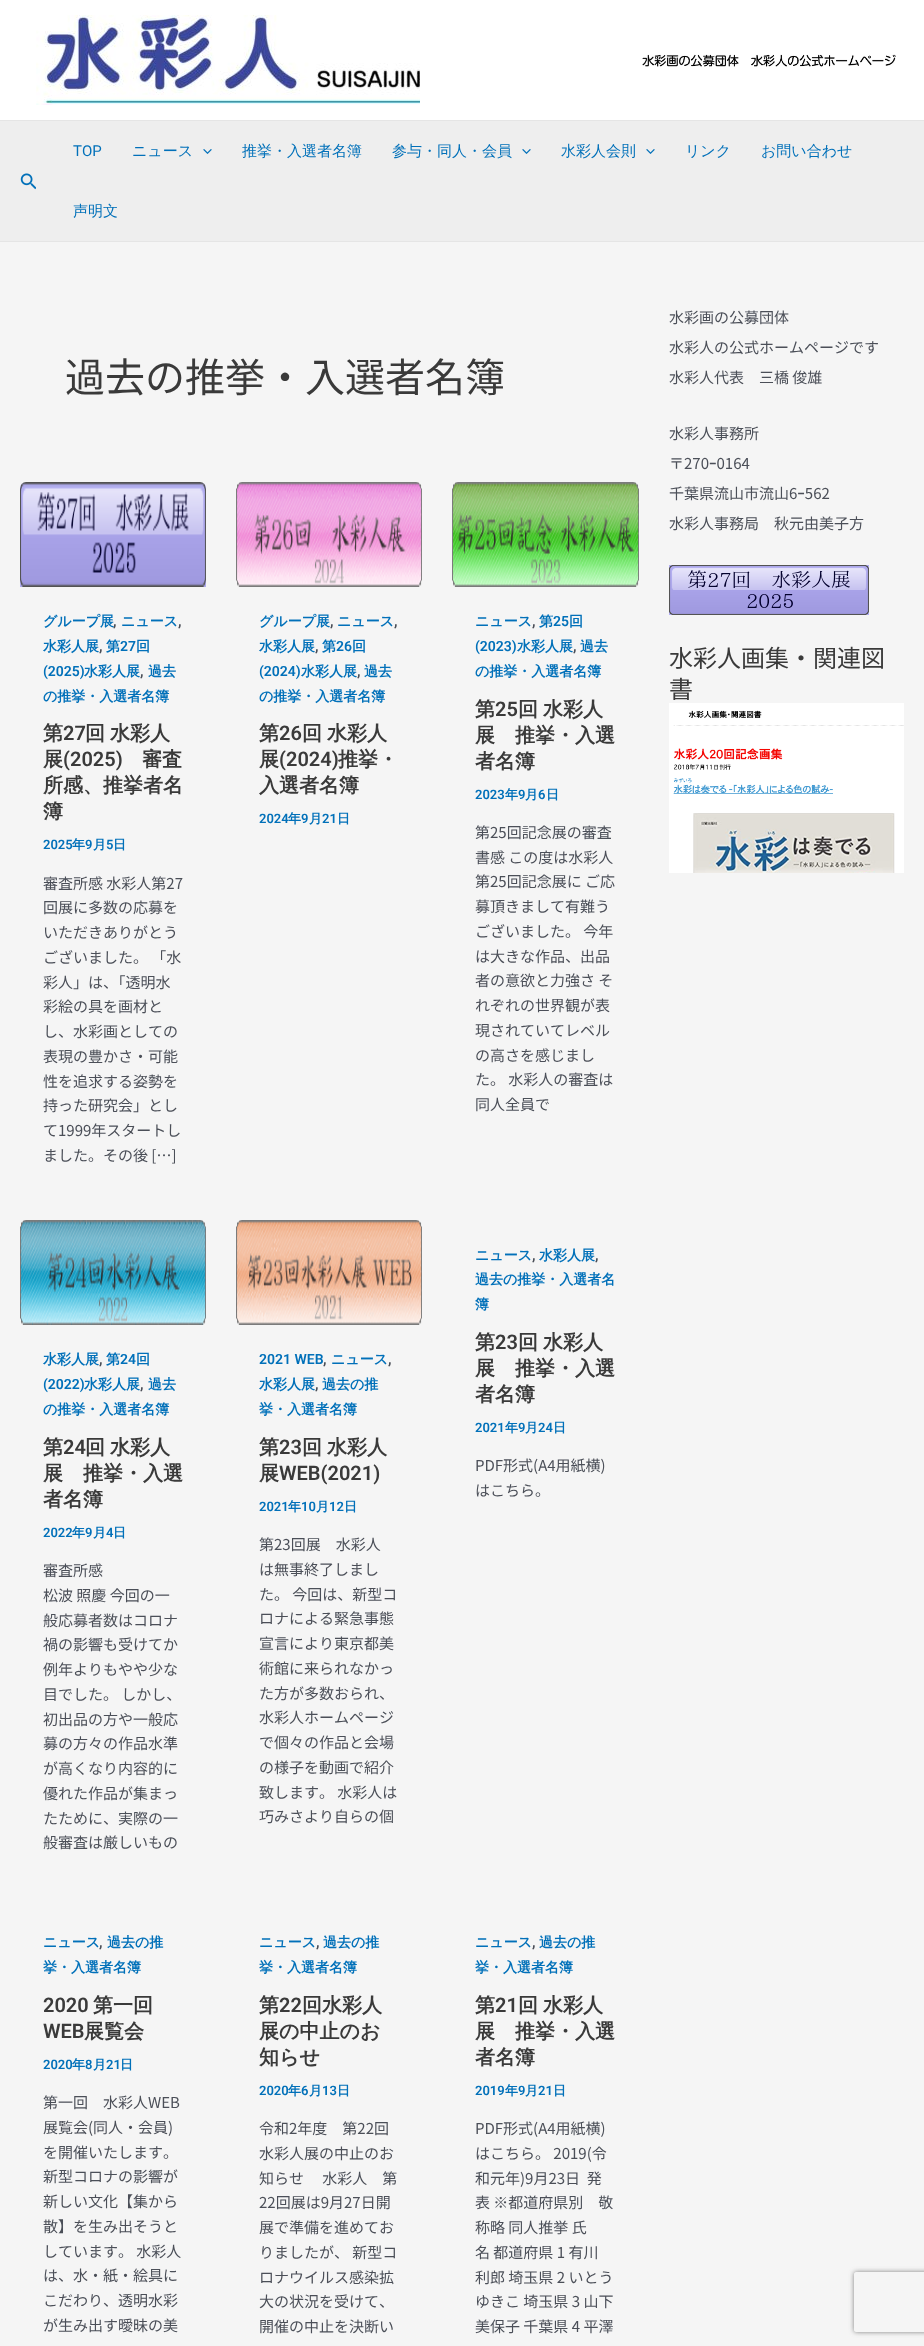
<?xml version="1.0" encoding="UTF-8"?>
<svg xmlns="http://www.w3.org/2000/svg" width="924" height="2346">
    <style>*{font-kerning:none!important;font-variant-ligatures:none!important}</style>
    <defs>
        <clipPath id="clip1"><path d="M 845 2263 H 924 V 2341 H 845 Z M 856 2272 H 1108 C 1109 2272 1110 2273 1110 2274 V 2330 C 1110 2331 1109 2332 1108 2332 H 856 C 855 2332 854 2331 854 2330 V 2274 C 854 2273 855 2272 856 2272 Z" clip-rule="evenodd"/></clipPath>
        <filter id="blur1" x="-50%" y="-200%" width="200%" height="500%"><feGaussianBlur stdDeviation="2.5"/></filter>
    </defs>
    <rect width="100%" height="100%" fill="#F5F5F5"/>
    <rect x="0" y="0" width="924" height="120" fill="#FFFFFF"/>
    <rect x="0" y="120" width="924" height="1" fill="#E5E5E5"/>
    <image x="36" y="15" width="384" height="90" href="img_01.png"/>
    <image x="642" y="54" width="254" height="13" href="img_02.png"/>
    <rect x="0" y="121" width="924" height="120" fill="#EEEEEE"/>
    <rect x="0" y="241" width="924" height="1" fill="#E5E5E5"/>
    <image x="20" y="173" width="16" height="17" href="img_03.png"/>
    <text x="73" y="156" font-family="Roboto" font-size="15" fill="#0170B9">TOP</text>
    <text x="132" y="156" font-family="WenQuanYi Zen Hei" font-size="15" font-weight="500" fill="#0170B9">ニュース</text>
    <image x="203" y="149" width="9" height="5" href="img_04.png"/>
    <text x="242" y="156" font-family="WenQuanYi Zen Hei" font-size="15" font-weight="500" fill="#0170B9">推挙・入選者名簿</text>
    <text x="392" y="156" font-family="WenQuanYi Zen Hei" font-size="15" font-weight="500" fill="#0170B9">参与・同人・会員</text>
    <image x="522" y="149" width="9" height="5" href="img_04.png"/>
    <text x="561" y="156" font-family="WenQuanYi Zen Hei" font-size="15" font-weight="500" fill="#0170B9">水彩人会則</text>
    <image x="646" y="149" width="9" height="5" href="img_04.png"/>
    <text x="685" y="156" font-family="WenQuanYi Zen Hei" font-size="15" font-weight="500" fill="#0170B9">リンク</text>
    <text x="761" y="156" font-family="WenQuanYi Zen Hei" font-size="15" font-weight="500" fill="#0170B9">お問い合わせ</text>
    <text x="73" y="216" font-family="WenQuanYi Zen Hei" font-size="15" font-weight="500" fill="#0170B9">声明文</text>
    <text x="65" y="392" font-family="Noto Sans JP" font-size="40" font-weight="100" fill="#3A3A3A">過去の推挙・入選者名簿</text>
    <image x="20" y="482" width="186" height="105" href="img_05.png"/>
    <text x="43" y="626" font-family="WenQuanYi Zen Hei" font-size="14" font-weight="700" fill="#0170B9">グループ展</text>
    <text x="113" y="626" font-family="Roboto" font-size="15" font-weight="600" fill="#4B4F58">,</text>
    <text x="121" y="626" font-family="WenQuanYi Zen Hei" font-size="14" font-weight="700" fill="#0170B9">ニュース</text>
    <text x="178" y="626" font-family="Roboto" font-size="15" font-weight="600" fill="#4B4F58">,</text>
    <text x="43" y="651" font-family="WenQuanYi Zen Hei" font-size="14" font-weight="700" fill="#0170B9">水彩人展</text>
    <text x="99" y="651" font-family="Roboto" font-size="15" font-weight="600" fill="#4B4F58">,</text>
    <text x="106" y="651" font-family="WenQuanYi Zen Hei" font-size="14" font-weight="700" fill="#0170B9">第</text>
    <text x="120" y="651" font-family="Roboto" font-size="14" font-weight="600" fill="#0170B9">27</text>
    <text x="136" y="651" font-family="WenQuanYi Zen Hei" font-size="14" font-weight="700" fill="#0170B9">回</text>
    <text x="43" y="676" font-family="Roboto" font-size="14" font-weight="600" fill="#0170B9">(2025)</text>
    <text x="84" y="676" font-family="WenQuanYi Zen Hei" font-size="14" font-weight="700" fill="#0170B9">水彩人展</text>
    <text x="140" y="676" font-family="Roboto" font-size="15" font-weight="600" fill="#4B4F58">,</text>
    <text x="148" y="676" font-family="WenQuanYi Zen Hei" font-size="14" font-weight="700" fill="#0170B9">過去</text>
    <text x="43" y="701" font-family="WenQuanYi Zen Hei" font-size="14" font-weight="700" fill="#0170B9">の推挙・入選者名簿</text>
    <text x="43" y="740" font-family="WenQuanYi Zen Hei" font-size="20" font-weight="700" fill="#3A3A3A">第</text>
    <text x="63" y="740" font-family="Roboto" font-size="20" font-weight="600" fill="#3A3A3A">27</text>
    <text x="85" y="740" word-spacing="-1" font-family="WenQuanYi Zen Hei" font-size="20" font-weight="700" fill="#3A3A3A">回 水彩人</text>
    <text x="43" y="766" font-family="WenQuanYi Zen Hei" font-size="20" font-weight="700" fill="#3A3A3A">展</text>
    <text x="63" y="766" font-family="Roboto" font-size="20" font-weight="600" fill="#3A3A3A">(2025)</text>
    <text x="142" y="766" font-family="WenQuanYi Zen Hei" font-size="20" font-weight="700" fill="#3A3A3A">審査</text>
    <text font-family="WenQuanYi Zen Hei" font-size="20" font-weight="700" fill="#3A3A3A">
        <tspan x="43" y="792">所感、推挙者名</tspan>
        <tspan x="43" y="818">簿</tspan>
    </text>
    <text x="43" y="849" font-family="Roboto" font-size="13" font-weight="600" fill="#0170B9">2025</text>
    <text x="72" y="849" font-family="WenQuanYi Zen Hei" font-size="13" font-weight="700" fill="#0170B9">年</text>
    <text x="85" y="849" font-family="Roboto" font-size="13" font-weight="600" fill="#0170B9">9</text>
    <text x="93" y="849" font-family="WenQuanYi Zen Hei" font-size="13" font-weight="700" fill="#0170B9">月</text>
    <text x="106" y="849" font-family="Roboto" font-size="13" font-weight="600" fill="#0170B9">5</text>
    <text x="113" y="849" font-family="WenQuanYi Zen Hei" font-size="13" font-weight="700" fill="#0170B9">日</text>
    <text font-family="Noto Sans JP" font-size="15" font-weight="100" fill="#4B4F58">
        <tspan x="43" y="889">審査所感 水彩人第27</tspan>
        <tspan x="43" y="913">回展に多数の応募を</tspan>
        <tspan x="43" y="938">いただきありがとう</tspan>
        <tspan x="43" y="963">ございました。 「水</tspan>
        <tspan x="43" y="988">彩人」は、「透明水</tspan>
        <tspan x="43" y="1012">彩絵の具を画材と</tspan>
        <tspan x="43" y="1037">し、水彩画としての</tspan>
        <tspan x="43" y="1062">表現の豊かさ・可能</tspan>
        <tspan x="43" y="1087">性を追求する姿勢を</tspan>
        <tspan x="43" y="1111">持った研究会」とし</tspan>
        <tspan x="43" y="1136">て1999年スタートし</tspan>
        <tspan x="43" y="1161">ました。その後 […]</tspan>
    </text>
    <image x="236" y="482" width="186" height="105" href="img_06.png"/>
    <text x="259" y="626" font-family="WenQuanYi Zen Hei" font-size="14" font-weight="700" fill="#0170B9">グループ展</text>
    <text x="330" y="626" font-family="Roboto" font-size="15" font-weight="600" fill="#4B4F58">,</text>
    <text x="337" y="626" font-family="WenQuanYi Zen Hei" font-size="14" font-weight="700" fill="#0170B9">ニュース</text>
    <text x="394" y="626" font-family="Roboto" font-size="15" font-weight="600" fill="#4B4F58">,</text>
    <text x="259" y="651" font-family="WenQuanYi Zen Hei" font-size="14" font-weight="700" fill="#0170B9">水彩人展</text>
    <text x="315" y="651" font-family="Roboto" font-size="15" font-weight="600" fill="#4B4F58">,</text>
    <text x="322" y="651" font-family="WenQuanYi Zen Hei" font-size="14" font-weight="700" fill="#0170B9">第</text>
    <text x="336" y="651" font-family="Roboto" font-size="14" font-weight="600" fill="#0170B9">26</text>
    <text x="352" y="651" font-family="WenQuanYi Zen Hei" font-size="14" font-weight="700" fill="#0170B9">回</text>
    <text x="259" y="676" font-family="Roboto" font-size="14" font-weight="600" fill="#0170B9">(2024)</text>
    <text x="301" y="676" font-family="WenQuanYi Zen Hei" font-size="14" font-weight="700" fill="#0170B9">水彩人展</text>
    <text x="357" y="676" font-family="Roboto" font-size="15" font-weight="600" fill="#4B4F58">,</text>
    <text x="364" y="676" font-family="WenQuanYi Zen Hei" font-size="14" font-weight="700" fill="#0170B9">過去</text>
    <text x="259" y="701" font-family="WenQuanYi Zen Hei" font-size="14" font-weight="700" fill="#0170B9">の推挙・入選者名簿</text>
    <text x="259" y="740" font-family="WenQuanYi Zen Hei" font-size="20" font-weight="700" fill="#3A3A3A">第</text>
    <text x="279" y="740" font-family="Roboto" font-size="20" font-weight="600" fill="#3A3A3A">26</text>
    <text x="302" y="740" word-spacing="-1" font-family="WenQuanYi Zen Hei" font-size="20" font-weight="700" fill="#3A3A3A">回 水彩人</text>
    <text x="259" y="766" font-family="WenQuanYi Zen Hei" font-size="20" font-weight="700" fill="#3A3A3A">展</text>
    <text x="279" y="766" font-family="Roboto" font-size="20" font-weight="600" fill="#3A3A3A">(2024)</text>
    <text x="338" y="766" font-family="WenQuanYi Zen Hei" font-size="20" font-weight="700" fill="#3A3A3A">推挙・</text>
    <text x="259" y="792" font-family="WenQuanYi Zen Hei" font-size="20" font-weight="700" fill="#3A3A3A">入選者名簿</text>
    <text x="259" y="823" font-family="Roboto" font-size="13" font-weight="600" fill="#0170B9">2024</text>
    <text x="288" y="823" font-family="WenQuanYi Zen Hei" font-size="13" font-weight="700" fill="#0170B9">年</text>
    <text x="301" y="823" font-family="Roboto" font-size="13" font-weight="600" fill="#0170B9">9</text>
    <text x="309" y="823" font-family="WenQuanYi Zen Hei" font-size="13" font-weight="700" fill="#0170B9">月</text>
    <text x="322" y="823" font-family="Roboto" font-size="13" font-weight="600" fill="#0170B9">21</text>
    <text x="337" y="823" font-family="WenQuanYi Zen Hei" font-size="13" font-weight="700" fill="#0170B9">日</text>
    <image x="452" y="482" width="187" height="105" href="img_07.png"/>
    <text x="475" y="626" font-family="WenQuanYi Zen Hei" font-size="14" font-weight="700" fill="#0170B9">ニュース</text>
    <text x="532" y="626" font-family="Roboto" font-size="15" font-weight="600" fill="#4B4F58">,</text>
    <text x="539" y="626" font-family="WenQuanYi Zen Hei" font-size="14" font-weight="700" fill="#0170B9">第</text>
    <text x="553" y="626" font-family="Roboto" font-size="14" font-weight="600" fill="#0170B9">25</text>
    <text x="569" y="626" font-family="WenQuanYi Zen Hei" font-size="14" font-weight="700" fill="#0170B9">回</text>
    <text x="475" y="651" font-family="Roboto" font-size="14" font-weight="600" fill="#0170B9">(2023)</text>
    <text x="517" y="651" font-family="WenQuanYi Zen Hei" font-size="14" font-weight="700" fill="#0170B9">水彩人展</text>
    <text x="573" y="651" font-family="Roboto" font-size="15" font-weight="600" fill="#4B4F58">,</text>
    <text x="580" y="651" font-family="WenQuanYi Zen Hei" font-size="14" font-weight="700" fill="#0170B9">過去</text>
    <text x="475" y="676" font-family="WenQuanYi Zen Hei" font-size="14" font-weight="700" fill="#0170B9">の推挙・入選者名簿</text>
    <text x="475" y="716" font-family="WenQuanYi Zen Hei" font-size="20" font-weight="700" fill="#3A3A3A">第</text>
    <text x="495" y="716" font-family="Roboto" font-size="20" font-weight="600" fill="#3A3A3A">25</text>
    <text x="518" y="716" word-spacing="-1" font-family="WenQuanYi Zen Hei" font-size="20" font-weight="700" fill="#3A3A3A">回 水彩人</text>
    <text font-family="WenQuanYi Zen Hei" font-size="20" font-weight="700" fill="#3A3A3A">
        <tspan x="475" y="742">展　推挙・入選</tspan>
        <tspan x="475" y="768">者名簿</tspan>
    </text>
    <text x="475" y="799" font-family="Roboto" font-size="13" font-weight="600" fill="#0170B9">2023</text>
    <text x="505" y="799" font-family="WenQuanYi Zen Hei" font-size="13" font-weight="700" fill="#0170B9">年</text>
    <text x="518" y="799" font-family="Roboto" font-size="13" font-weight="600" fill="#0170B9">9</text>
    <text x="525" y="799" font-family="WenQuanYi Zen Hei" font-size="13" font-weight="700" fill="#0170B9">月</text>
    <text x="538" y="799" font-family="Roboto" font-size="13" font-weight="600" fill="#0170B9">6</text>
    <text x="546" y="799" font-family="WenQuanYi Zen Hei" font-size="13" font-weight="700" fill="#0170B9">日</text>
    <text font-family="Noto Sans JP" font-size="15" font-weight="100" fill="#4B4F58">
        <tspan x="475" y="838">第25回記念展の審査</tspan>
        <tspan x="475" y="863">書感 この度は水彩人</tspan>
        <tspan x="475" y="887">第25回記念展に ご応</tspan>
        <tspan x="475" y="912">募頂きまして有難う</tspan>
        <tspan x="475" y="937">ございました。 今年</tspan>
        <tspan x="475" y="962">は大きな作品、出品</tspan>
        <tspan x="475" y="986">者の意欲と力強さ そ</tspan>
        <tspan x="475" y="1011">れぞれの世界観が表</tspan>
        <tspan x="475" y="1036">現されていてレベル</tspan>
        <tspan x="475" y="1061">の高さを感じまし</tspan>
        <tspan x="475" y="1085">た。 水彩人の審査は</tspan>
        <tspan x="475" y="1110">同人全員で</tspan>
    </text>
    <image x="20" y="1220" width="186" height="105" href="img_08.png"/>
    <text x="43" y="1364" font-family="WenQuanYi Zen Hei" font-size="14" font-weight="700" fill="#0170B9">水彩人展</text>
    <text x="99" y="1364" font-family="Roboto" font-size="15" font-weight="600" fill="#4B4F58">,</text>
    <text x="106" y="1364" font-family="WenQuanYi Zen Hei" font-size="14" font-weight="700" fill="#0170B9">第</text>
    <text x="120" y="1364" font-family="Roboto" font-size="14" font-weight="600" fill="#0170B9">24</text>
    <text x="136" y="1364" font-family="WenQuanYi Zen Hei" font-size="14" font-weight="700" fill="#0170B9">回</text>
    <text x="43" y="1389" font-family="Roboto" font-size="14" font-weight="600" fill="#0170B9">(2022)</text>
    <text x="84" y="1389" font-family="WenQuanYi Zen Hei" font-size="14" font-weight="700" fill="#0170B9">水彩人展</text>
    <text x="140" y="1389" font-family="Roboto" font-size="15" font-weight="600" fill="#4B4F58">,</text>
    <text x="148" y="1389" font-family="WenQuanYi Zen Hei" font-size="14" font-weight="700" fill="#0170B9">過去</text>
    <text x="43" y="1414" font-family="WenQuanYi Zen Hei" font-size="14" font-weight="700" fill="#0170B9">の推挙・入選者名簿</text>
    <text x="43" y="1454" font-family="WenQuanYi Zen Hei" font-size="20" font-weight="700" fill="#3A3A3A">第</text>
    <text x="63" y="1454" font-family="Roboto" font-size="20" font-weight="600" fill="#3A3A3A">24</text>
    <text x="85" y="1454" word-spacing="-1" font-family="WenQuanYi Zen Hei" font-size="20" font-weight="700" fill="#3A3A3A">回 水彩人</text>
    <text font-family="WenQuanYi Zen Hei" font-size="20" font-weight="700" fill="#3A3A3A">
        <tspan x="43" y="1480">展　推挙・入選</tspan>
        <tspan x="43" y="1506">者名簿</tspan>
    </text>
    <text x="43" y="1537" font-family="Roboto" font-size="13" font-weight="600" fill="#0170B9">2022</text>
    <text x="72" y="1537" font-family="WenQuanYi Zen Hei" font-size="13" font-weight="700" fill="#0170B9">年</text>
    <text x="85" y="1537" font-family="Roboto" font-size="13" font-weight="600" fill="#0170B9">9</text>
    <text x="93" y="1537" font-family="WenQuanYi Zen Hei" font-size="13" font-weight="700" fill="#0170B9">月</text>
    <text x="106" y="1537" font-family="Roboto" font-size="13" font-weight="600" fill="#0170B9">4</text>
    <text x="113" y="1537" font-family="WenQuanYi Zen Hei" font-size="13" font-weight="700" fill="#0170B9">日</text>
    <text font-family="Noto Sans JP" font-size="15" font-weight="100" fill="#4B4F58">
        <tspan x="43" y="1576">審査所感</tspan>
        <tspan x="43" y="1601">松波 照慶 今回の一</tspan>
        <tspan x="43" y="1626">般応募者数はコロナ</tspan>
        <tspan x="43" y="1650">禍の影響も受けてか</tspan>
        <tspan x="43" y="1675">例年よりもやや少な</tspan>
        <tspan x="43" y="1700">目でした。 しかし、</tspan>
        <tspan x="43" y="1725">初出品の方や一般応</tspan>
        <tspan x="43" y="1749">募の方々の作品水準</tspan>
        <tspan x="43" y="1774">が高くなり内容的に</tspan>
        <tspan x="43" y="1799">優れた作品が集まっ</tspan>
        <tspan x="43" y="1824">たために、実際の一</tspan>
        <tspan x="43" y="1848">般審査は厳しいもの</tspan>
    </text>
    <image x="236" y="1220" width="186" height="105" href="img_09.png"/>
    <text x="259" y="1364" font-family="Roboto" font-size="14" font-weight="600" fill="#0170B9">2021 WEB</text>
    <text x="323" y="1364" font-family="Roboto" font-size="15" font-weight="600" fill="#4B4F58">,</text>
    <text x="331" y="1364" font-family="WenQuanYi Zen Hei" font-size="14" font-weight="700" fill="#0170B9">ニュース</text>
    <text x="388" y="1364" font-family="Roboto" font-size="15" font-weight="600" fill="#4B4F58">,</text>
    <text x="259" y="1389" font-family="WenQuanYi Zen Hei" font-size="14" font-weight="700" fill="#0170B9">水彩人展</text>
    <text x="315" y="1389" font-family="Roboto" font-size="15" font-weight="600" fill="#4B4F58">,</text>
    <text x="322" y="1389" font-family="WenQuanYi Zen Hei" font-size="14" font-weight="700" fill="#0170B9">過去の推</text>
    <text x="259" y="1414" font-family="WenQuanYi Zen Hei" font-size="14" font-weight="700" fill="#0170B9">挙・入選者名簿</text>
    <text x="259" y="1454" font-family="WenQuanYi Zen Hei" font-size="20" font-weight="700" fill="#3A3A3A">第</text>
    <text x="279" y="1454" font-family="Roboto" font-size="20" font-weight="600" fill="#3A3A3A">23</text>
    <text x="302" y="1454" word-spacing="-1" font-family="WenQuanYi Zen Hei" font-size="20" font-weight="700" fill="#3A3A3A">回 水彩人</text>
    <text x="259" y="1480" font-family="WenQuanYi Zen Hei" font-size="20" font-weight="700" fill="#3A3A3A">展</text>
    <text x="279" y="1480" font-family="Roboto" font-size="20" font-weight="600" fill="#3A3A3A">WEB(2021)</text>
    <text x="259" y="1511" font-family="Roboto" font-size="13" font-weight="600" fill="#0170B9">2021</text>
    <text x="288" y="1511" font-family="WenQuanYi Zen Hei" font-size="13" font-weight="700" fill="#0170B9">年</text>
    <text x="301" y="1511" font-family="Roboto" font-size="13" font-weight="600" fill="#0170B9">10</text>
    <text x="316" y="1511" font-family="WenQuanYi Zen Hei" font-size="13" font-weight="700" fill="#0170B9">月</text>
    <text x="329" y="1511" font-family="Roboto" font-size="13" font-weight="600" fill="#0170B9">12</text>
    <text x="344" y="1511" font-family="WenQuanYi Zen Hei" font-size="13" font-weight="700" fill="#0170B9">日</text>
    <text font-family="Noto Sans JP" font-size="15" font-weight="100" fill="#4B4F58">
        <tspan x="259" y="1550">第23回展　水彩人</tspan>
        <tspan x="259" y="1575">は無事終了しまし</tspan>
        <tspan x="259" y="1600">た。 今回は、新型コ</tspan>
        <tspan x="259" y="1624">ロナによる緊急事態</tspan>
        <tspan x="259" y="1649">宣言により東京都美</tspan>
        <tspan x="259" y="1674">術館に来られなかっ</tspan>
        <tspan x="259" y="1699">た方が多数おられ、</tspan>
        <tspan x="259" y="1723">水彩人ホームページ</tspan>
        <tspan x="259" y="1748">で個々の作品と会場</tspan>
        <tspan x="259" y="1773">の様子を動画で紹介</tspan>
        <tspan x="259" y="1798">致します。 水彩人は</tspan>
        <tspan x="259" y="1822">巧みさより自らの個</tspan>
    </text>
    <text x="475" y="1260" font-family="WenQuanYi Zen Hei" font-size="14" font-weight="700" fill="#0170B9">ニュース</text>
    <text x="532" y="1260" font-family="Roboto" font-size="15" font-weight="600" fill="#4B4F58">,</text>
    <text x="539" y="1260" font-family="WenQuanYi Zen Hei" font-size="14" font-weight="700" fill="#0170B9">水彩人展</text>
    <text x="595" y="1260" font-family="Roboto" font-size="15" font-weight="600" fill="#4B4F58">,</text>
    <text font-family="WenQuanYi Zen Hei" font-size="14" font-weight="700" fill="#0170B9">
        <tspan x="475" y="1284">過去の推挙・入選者名</tspan>
        <tspan x="475" y="1309">簿</tspan>
    </text>
    <text x="475" y="1349" font-family="WenQuanYi Zen Hei" font-size="20" font-weight="700" fill="#3A3A3A">第</text>
    <text x="495" y="1349" font-family="Roboto" font-size="20" font-weight="600" fill="#3A3A3A">23</text>
    <text x="518" y="1349" word-spacing="-1" font-family="WenQuanYi Zen Hei" font-size="20" font-weight="700" fill="#3A3A3A">回 水彩人</text>
    <text font-family="WenQuanYi Zen Hei" font-size="20" font-weight="700" fill="#3A3A3A">
        <tspan x="475" y="1375">展　推挙・入選</tspan>
        <tspan x="475" y="1401">者名簿</tspan>
    </text>
    <text x="475" y="1432" font-family="Roboto" font-size="13" font-weight="600" fill="#0170B9">2021</text>
    <text x="505" y="1432" font-family="WenQuanYi Zen Hei" font-size="13" font-weight="700" fill="#0170B9">年</text>
    <text x="518" y="1432" font-family="Roboto" font-size="13" font-weight="600" fill="#0170B9">9</text>
    <text x="525" y="1432" font-family="WenQuanYi Zen Hei" font-size="13" font-weight="700" fill="#0170B9">月</text>
    <text x="538" y="1432" font-family="Roboto" font-size="13" font-weight="600" fill="#0170B9">24</text>
    <text x="553" y="1432" font-family="WenQuanYi Zen Hei" font-size="13" font-weight="700" fill="#0170B9">日</text>
    <text font-family="Noto Sans JP" font-size="15" font-weight="100" fill="#4B4F58">
        <tspan x="475" y="1471">PDF形式(A4用紙横)</tspan>
        <tspan x="475" y="1496">はこちら。</tspan>
    </text>
    <text x="43" y="1947" font-family="WenQuanYi Zen Hei" font-size="14" font-weight="700" fill="#0170B9">ニュース</text>
    <text x="99" y="1947" font-family="Roboto" font-size="15" font-weight="600" fill="#4B4F58">,</text>
    <text x="107" y="1947" font-family="WenQuanYi Zen Hei" font-size="14" font-weight="700" fill="#0170B9">過去の推</text>
    <text x="43" y="1972" font-family="WenQuanYi Zen Hei" font-size="14" font-weight="700" fill="#0170B9">挙・入選者名簿</text>
    <text x="43" y="2012" font-family="Roboto" font-size="20" font-weight="600" fill="#3A3A3A">2020</text>
    <text x="93" y="2012" font-family="WenQuanYi Zen Hei" font-size="20" font-weight="700" fill="#3A3A3A">第一回</text>
    <text x="43" y="2038" font-family="Roboto" font-size="20" font-weight="600" fill="#3A3A3A">WEB</text>
    <text x="84" y="2038" font-family="WenQuanYi Zen Hei" font-size="20" font-weight="700" fill="#3A3A3A">展覧会</text>
    <text x="43" y="2069" font-family="Roboto" font-size="13" font-weight="600" fill="#0170B9">2020</text>
    <text x="72" y="2069" font-family="WenQuanYi Zen Hei" font-size="13" font-weight="700" fill="#0170B9">年</text>
    <text x="85" y="2069" font-family="Roboto" font-size="13" font-weight="600" fill="#0170B9">8</text>
    <text x="93" y="2069" font-family="WenQuanYi Zen Hei" font-size="13" font-weight="700" fill="#0170B9">月</text>
    <text x="106" y="2069" font-family="Roboto" font-size="13" font-weight="600" fill="#0170B9">21</text>
    <text x="120" y="2069" font-family="WenQuanYi Zen Hei" font-size="13" font-weight="700" fill="#0170B9">日</text>
    <text font-family="Noto Sans JP" font-size="15" font-weight="100" fill="#4B4F58">
        <tspan x="43" y="2108">第一回　水彩人WEB</tspan>
        <tspan x="43" y="2133">展覧会(同人・会員)</tspan>
        <tspan x="43" y="2158">を開催いたします。</tspan>
        <tspan x="43" y="2182">新型コロナの影響が</tspan>
        <tspan x="43" y="2207">新しい文化【集から</tspan>
        <tspan x="43" y="2232">散】を生み出そうと</tspan>
        <tspan x="43" y="2257">しています。 水彩人</tspan>
        <tspan x="43" y="2281">は、水・紙・絵具に</tspan>
        <tspan x="43" y="2306">こだわり、透明水彩</tspan>
        <tspan x="43" y="2331">が生み出す曖昧の美</tspan>
    </text>
    <text x="259" y="1947" font-family="WenQuanYi Zen Hei" font-size="14" font-weight="700" fill="#0170B9">ニュース</text>
    <text x="316" y="1947" font-family="Roboto" font-size="15" font-weight="600" fill="#4B4F58">,</text>
    <text x="323" y="1947" font-family="WenQuanYi Zen Hei" font-size="14" font-weight="700" fill="#0170B9">過去の推</text>
    <text x="259" y="1972" font-family="WenQuanYi Zen Hei" font-size="14" font-weight="700" fill="#0170B9">挙・入選者名簿</text>
    <text x="259" y="2012" font-family="WenQuanYi Zen Hei" font-size="20" font-weight="700" fill="#3A3A3A">第</text>
    <text x="279" y="2012" font-family="Roboto" font-size="20" font-weight="600" fill="#3A3A3A">22</text>
    <text x="302" y="2012" font-family="WenQuanYi Zen Hei" font-size="20" font-weight="700" fill="#3A3A3A">回水彩人</text>
    <text font-family="WenQuanYi Zen Hei" font-size="20" font-weight="700" fill="#3A3A3A">
        <tspan x="259" y="2038">展の中止のお</tspan>
        <tspan x="259" y="2064">知らせ</tspan>
    </text>
    <text x="259" y="2095" font-family="Roboto" font-size="13" font-weight="600" fill="#0170B9">2020</text>
    <text x="288" y="2095" font-family="WenQuanYi Zen Hei" font-size="13" font-weight="700" fill="#0170B9">年</text>
    <text x="301" y="2095" font-family="Roboto" font-size="13" font-weight="600" fill="#0170B9">6</text>
    <text x="309" y="2095" font-family="WenQuanYi Zen Hei" font-size="13" font-weight="700" fill="#0170B9">月</text>
    <text x="322" y="2095" font-family="Roboto" font-size="13" font-weight="600" fill="#0170B9">13</text>
    <text x="337" y="2095" font-family="WenQuanYi Zen Hei" font-size="13" font-weight="700" fill="#0170B9">日</text>
    <text font-family="Noto Sans JP" font-size="15" font-weight="100" fill="#4B4F58">
        <tspan x="259" y="2134">令和2年度　第22回</tspan>
        <tspan x="259" y="2159">水彩人展の中止のお</tspan>
        <tspan x="259" y="2184">知らせ 　水彩人　第</tspan>
        <tspan x="259" y="2208">22回展は9月27日開</tspan>
        <tspan x="259" y="2233">展で準備を進めてお</tspan>
        <tspan x="259" y="2258">りましたが、 新型コ</tspan>
        <tspan x="259" y="2283">ロナウイルス感染拡</tspan>
        <tspan x="259" y="2307">大の状況を受けて、</tspan>
        <tspan x="259" y="2332">開催の中止を決断い</tspan>
    </text>
    <text x="475" y="1947" font-family="WenQuanYi Zen Hei" font-size="14" font-weight="700" fill="#0170B9">ニュース</text>
    <text x="532" y="1947" font-family="Roboto" font-size="15" font-weight="600" fill="#4B4F58">,</text>
    <text x="539" y="1947" font-family="WenQuanYi Zen Hei" font-size="14" font-weight="700" fill="#0170B9">過去の推</text>
    <text x="475" y="1972" font-family="WenQuanYi Zen Hei" font-size="14" font-weight="700" fill="#0170B9">挙・入選者名簿</text>
    <text x="475" y="2012" font-family="WenQuanYi Zen Hei" font-size="20" font-weight="700" fill="#3A3A3A">第</text>
    <text x="495" y="2012" font-family="Roboto" font-size="20" font-weight="600" fill="#3A3A3A">21</text>
    <text x="518" y="2012" word-spacing="-1" font-family="WenQuanYi Zen Hei" font-size="20" font-weight="700" fill="#3A3A3A">回 水彩人</text>
    <text font-family="WenQuanYi Zen Hei" font-size="20" font-weight="700" fill="#3A3A3A">
        <tspan x="475" y="2038">展　推挙・入選</tspan>
        <tspan x="475" y="2064">者名簿</tspan>
    </text>
    <text x="475" y="2095" font-family="Roboto" font-size="13" font-weight="600" fill="#0170B9">2019</text>
    <text x="505" y="2095" font-family="WenQuanYi Zen Hei" font-size="13" font-weight="700" fill="#0170B9">年</text>
    <text x="518" y="2095" font-family="Roboto" font-size="13" font-weight="600" fill="#0170B9">9</text>
    <text x="525" y="2095" font-family="WenQuanYi Zen Hei" font-size="13" font-weight="700" fill="#0170B9">月</text>
    <text x="538" y="2095" font-family="Roboto" font-size="13" font-weight="600" fill="#0170B9">21</text>
    <text x="553" y="2095" font-family="WenQuanYi Zen Hei" font-size="13" font-weight="700" fill="#0170B9">日</text>
    <text font-family="Noto Sans JP" font-size="15" font-weight="100" fill="#4B4F58" xml:space="preserve"><tspan x="475" y="2134">PDF形式(A4用紙横)</tspan><tspan x="475" y="2159">はこちら。 2019(令</tspan><tspan x="475" y="2184">和元年)9月23日  発</tspan><tspan x="475" y="2208">表 ※都道府県別　敬</tspan><tspan x="475" y="2233">称略 同人推挙 氏</tspan><tspan x="475" y="2258">名 都道府県 1 有川</tspan><tspan x="475" y="2283">利郎 埼玉県 2 いとう</tspan><tspan x="475" y="2307">ゆきこ 埼玉県 3 山下</tspan><tspan x="475" y="2332">美保子 千葉県 4 平澤</tspan></text>
    <text x="669" y="323" font-family="Noto Sans JP" font-size="15" font-weight="100" fill="#4B4F58">水彩画の公募団体</text>
    <text x="669" y="353" font-family="Noto Sans JP" font-size="15" font-weight="100" fill="#4B4F58">水彩人の公式ホームページです</text>
    <text x="669" y="383" font-family="Noto Sans JP" font-size="15" font-weight="100" fill="#4B4F58">水彩人代表　三橋 俊雄</text>
    <text x="669" y="439" font-family="Noto Sans JP" font-size="15" font-weight="100" fill="#4B4F58">水彩人事務所</text>
    <text x="669" y="469" font-family="Noto Sans JP" font-size="15" font-weight="100" fill="#4B4F58">〒270ｰ0164</text>
    <text x="669" y="499" font-family="Noto Sans JP" font-size="15" font-weight="100" fill="#4B4F58">千葉県流山市流山6ｰ562</text>
    <text x="669" y="529" font-family="Noto Sans JP" font-size="15" font-weight="100" fill="#4B4F58">水彩人事務局　秋元由美子方</text>
    <image x="669" y="565" width="200" height="50" href="img_10.png"/>
    <text font-family="Noto Sans JP" font-size="24" font-weight="100" fill="#3A3A3A">
        <tspan x="669" y="667">水彩人画集・関連図</tspan>
        <tspan x="669" y="698">書</tspan>
    </text>
    <image x="669" y="703" width="235" height="170" href="img_11.png"/>
    <g clip-path="url(#clip1)">
        <rect x="854" y="2272" width="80" height="60" rx="2" fill="#808080" filter="url(#blur1)"/>
    </g>
</svg>
